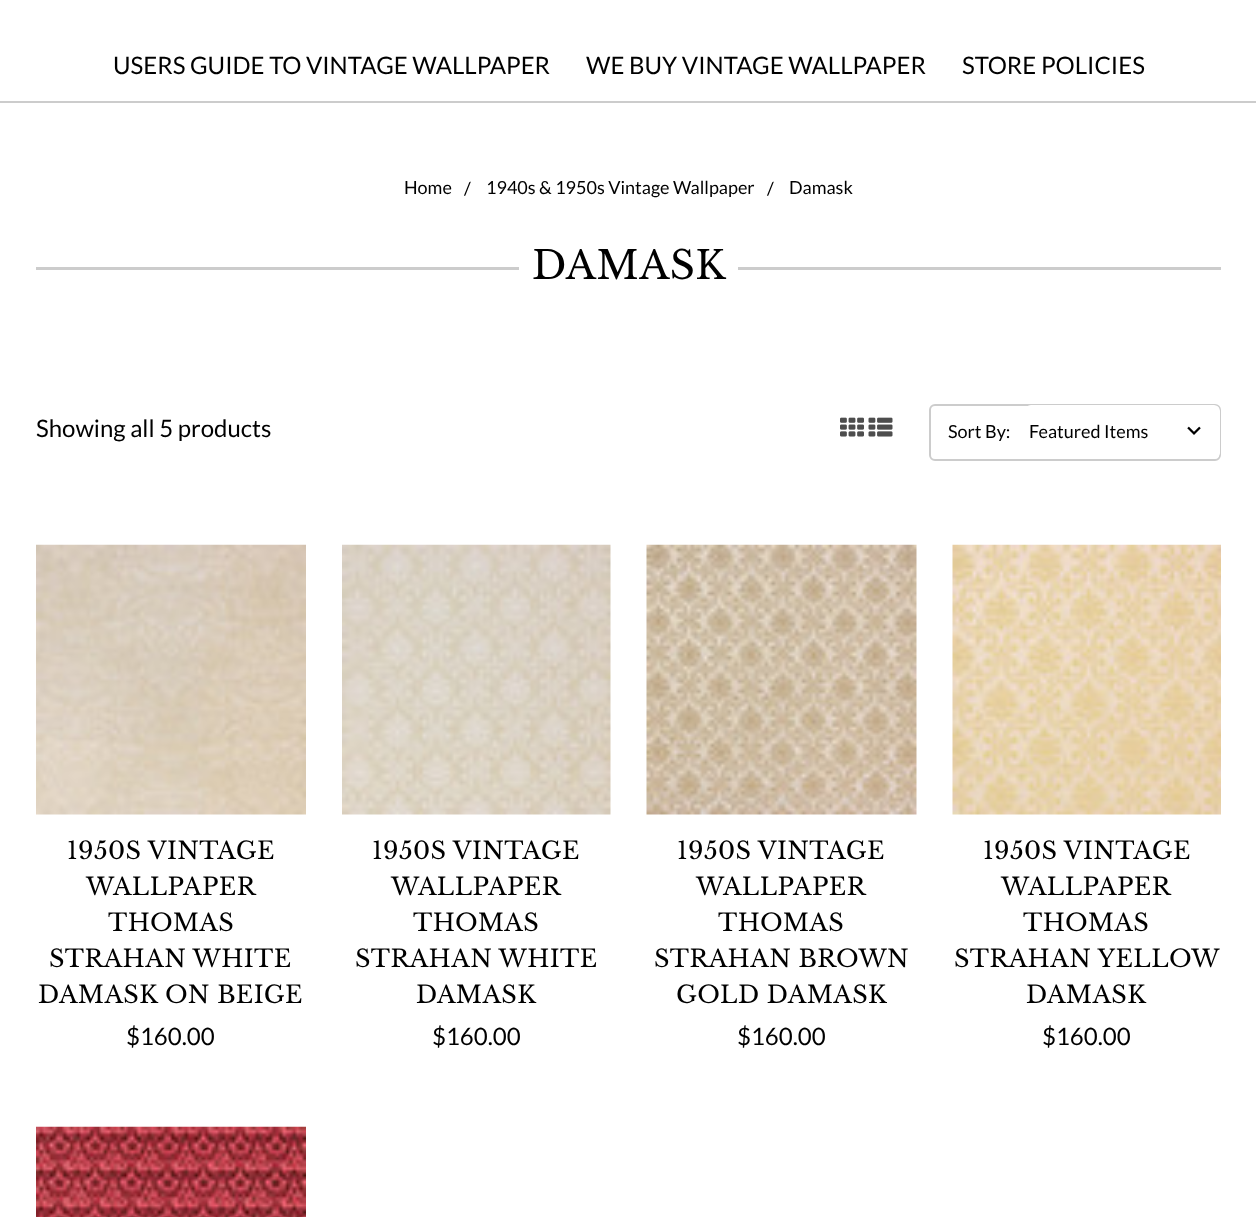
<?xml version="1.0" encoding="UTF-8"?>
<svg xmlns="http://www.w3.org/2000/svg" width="1256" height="1217">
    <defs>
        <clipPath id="clip1"><rect x="930" y="405" width="290" height="54" rx="5"/></clipPath>
    </defs>
    <rect width="100%" height="100%" fill="#FFFFFF"/>
    <rect x="0" y="101" width="1256" height="2" fill="#CCCCCC"/>
    <text x="113" y="74" font-family="Lato" font-size="24" fill="#000000">USERS GUIDE TO VINTAGE WALLPAPER</text>
    <text x="586" y="74" font-family="Lato" font-size="24" fill="#000000">WE BUY VINTAGE WALLPAPER</text>
    <text x="962" y="74" font-family="Lato" font-size="24" fill="#000000">STORE POLICIES</text>
    <text x="404" y="194" font-family="Lato" font-size="18" fill="#000000">Home</text>
    <text x="464" y="195" font-family="Lato" font-size="18" fill="#000000">/</text>
    <text x="486" y="194" font-family="Lato" font-size="18" fill="#000000">1940s &amp; 1950s Vintage Wallpaper</text>
    <text x="767" y="195" font-family="Lato" font-size="18" fill="#000000">/</text>
    <text x="789" y="194" font-family="Lato" font-size="18" fill="#000000">Damask</text>
    <rect x="36" y="267" width="483" height="3" fill="#CCCCCC"/>
    <text x="532" y="279" font-family="Libre Baskerville" font-size="39" letter-spacing="0.4" fill="#000000">DAMASK</text>
    <rect x="738" y="267" width="483" height="3" fill="#CCCCCC"/>
    <text x="36" y="437" font-family="Lato" font-size="24" fill="#000000">Showing all 5 products</text>
    <image x="840" y="417" width="24" height="20" href="img_01.png"/>
    <image x="868" y="417" width="25" height="20" href="img_02.png"/>
    <rect x="930" y="405" width="290" height="55" rx="5" fill="none" stroke="#CCCCCC" stroke-width="2"/>
    <text x="948" y="438" font-family="Lato" font-size="18" fill="#000000">Sort By:</text>
    <g clip-path="url(#clip1)">
        <rect x="1025" y="405" width="195" height="54" rx="6" fill="#FFFFFF"/>
    </g>
    <image x="1187" y="426" width="14" height="9" href="img_03.png"/>
    <text x="1029" y="438" font-family="Lato" font-size="18" fill="#000000">Featured Items</text>
    <image x="36" y="544" width="270" height="271" href="img_04.png"/>
    <text x="67" y="859" font-family="Libre Baskerville" font-size="24" letter-spacing="0.4" fill="#000000">1950S VINTAGE</text>
    <text x="86" y="895" font-family="Libre Baskerville" font-size="24" letter-spacing="0.4" fill="#000000">WALLPAPER</text>
    <text x="108" y="931" font-family="Libre Baskerville" font-size="24" letter-spacing="0.4" fill="#000000">THOMAS</text>
    <text x="49" y="967" font-family="Libre Baskerville" font-size="24" letter-spacing="0.4" fill="#000000">STRAHAN WHITE</text>
    <text x="38" y="1003" font-family="Libre Baskerville" font-size="24" letter-spacing="0.4" fill="#000000">DAMASK ON BEIGE</text>
    <text x="126" y="1045" font-family="Lato" font-size="24" fill="#000000">$160.00</text>
    <image x="342" y="544" width="269" height="271" href="img_05.png"/>
    <text x="372" y="859" font-family="Libre Baskerville" font-size="24" letter-spacing="0.4" fill="#000000">1950S VINTAGE</text>
    <text x="391" y="895" font-family="Libre Baskerville" font-size="24" letter-spacing="0.4" fill="#000000">WALLPAPER</text>
    <text x="413" y="931" font-family="Libre Baskerville" font-size="24" letter-spacing="0.4" fill="#000000">THOMAS</text>
    <text x="355" y="967" font-family="Libre Baskerville" font-size="24" letter-spacing="0.4" fill="#000000">STRAHAN WHITE</text>
    <text x="416" y="1003" font-family="Libre Baskerville" font-size="24" letter-spacing="0.4" fill="#000000">DAMASK</text>
    <text x="432" y="1045" font-family="Lato" font-size="24" fill="#000000">$160.00</text>
    <image x="646" y="544" width="271" height="271" href="img_06.png"/>
    <text x="677" y="859" font-family="Libre Baskerville" font-size="24" letter-spacing="0.4" fill="#000000">1950S VINTAGE</text>
    <text x="696" y="895" font-family="Libre Baskerville" font-size="24" letter-spacing="0.4" fill="#000000">WALLPAPER</text>
    <text x="718" y="931" font-family="Libre Baskerville" font-size="24" letter-spacing="0.4" fill="#000000">THOMAS</text>
    <text x="654" y="967" font-family="Libre Baskerville" font-size="24" letter-spacing="0.4" fill="#000000">STRAHAN BROWN</text>
    <text x="676" y="1003" font-family="Libre Baskerville" font-size="24" letter-spacing="0.4" fill="#000000">GOLD DAMASK</text>
    <text x="737" y="1045" font-family="Lato" font-size="24" fill="#000000">$160.00</text>
    <image x="952" y="544" width="269" height="271" href="img_07.png"/>
    <text x="983" y="859" font-family="Libre Baskerville" font-size="24" letter-spacing="0.4" fill="#000000">1950S VINTAGE</text>
    <text x="1001" y="895" font-family="Libre Baskerville" font-size="24" letter-spacing="0.4" fill="#000000">WALLPAPER</text>
    <text x="1023" y="931" font-family="Libre Baskerville" font-size="24" letter-spacing="0.4" fill="#000000">THOMAS</text>
    <text x="954" y="967" font-family="Libre Baskerville" font-size="24" letter-spacing="0.4" fill="#000000">STRAHAN YELLOW</text>
    <text x="1026" y="1003" font-family="Libre Baskerville" font-size="24" letter-spacing="0.4" fill="#000000">DAMASK</text>
    <text x="1042" y="1045" font-family="Lato" font-size="24" fill="#000000">$160.00</text>
    <image x="36" y="1126" width="270" height="91" href="img_08.png"/>
</svg>
